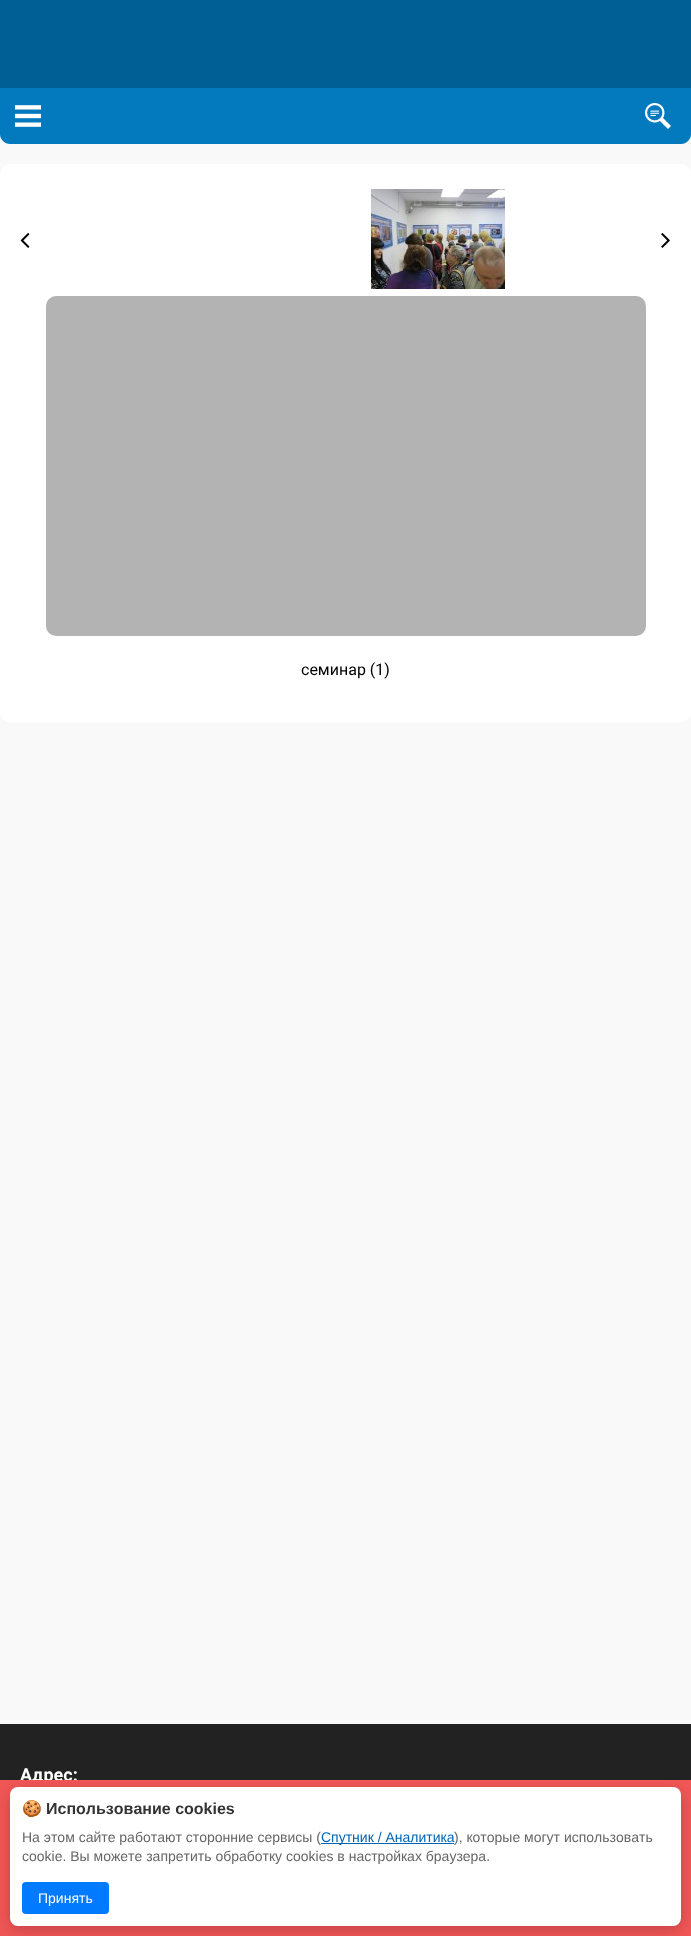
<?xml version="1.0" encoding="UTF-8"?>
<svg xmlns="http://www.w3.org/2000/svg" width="691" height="1936">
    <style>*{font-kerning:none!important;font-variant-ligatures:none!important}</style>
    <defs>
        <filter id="blur1" x="-50%" y="-200%" width="200%" height="500%"><feGaussianBlur stdDeviation="7.5"/></filter>
    </defs>
    <rect width="100%" height="100%" fill="#F9F9F9"/>
    <rect x="0" y="0" width="691" height="88" fill="#006095"/>
    <path d="M 0 88 H 691 V 134 C 691 139.5 686.5 144 681 144 H 10 C 4.5 144 0 139.5 0 134 Z" fill="#027ABD"/>
    <image x="15" y="105" width="26" height="22" href="img_01.png"/>
    <image x="645" y="103" width="26" height="26" href="img_02.png"/>
    <rect x="0" y="164" width="691" height="558" rx="10" fill="#FFFFFF"/>
    <image x="20" y="233" width="10" height="15" href="img_03.png"/>
    <image x="371" y="189" width="134" height="100" href="img_04.png"/>
    <image x="661" y="233" width="9" height="15" href="img_05.png"/>
    <rect x="46" y="296" width="600" height="340" rx="10" fill="#B3B3B3"/>
    <text x="301" y="675" font-family="Roboto" font-size="16" fill="#000000">семинар (1)</text>
    <rect x="0" y="1724" width="691" height="56" fill="#222222"/>
    <text x="20" y="1781" font-family="Roboto" font-size="18" font-weight="700" fill="#FFFFFF">Адрес:</text>
    <rect x="0" y="1780" width="691" height="156" fill="#F25656"/>
    <rect x="10" y="1791" width="671" height="139" rx="8" fill="#000000" fill-opacity="0.2" filter="url(#blur1)"/>
    <rect x="10" y="1787" width="671" height="139" rx="8" fill="#FFFFFF"/>
    <text x="22" y="1814" font-family="Noto Color Emoji" font-size="16" font-weight="700" fill="#333333">🍪</text>
    <text x="46" y="1814" font-family="Liberation Sans" font-size="16" font-weight="700" fill="#333333">Использование cookies</text>
    <text x="22" y="1842" font-family="Liberation Sans" font-size="14" fill="#666666">На этом сайте работают сторонние сервисы (</text>
    <rect x="321" y="1843" width="133" height="1" fill="#0065B3"/>
    <text x="321" y="1842" font-family="Liberation Sans" font-size="14" fill="#0065B3">Спутник / Аналитика</text>
    <text x="454" y="1842" font-family="Liberation Sans" font-size="14" fill="#666666">), которые могут использовать</text>
    <text x="22" y="1861" font-family="Liberation Sans" font-size="14" fill="#666666">cookie. Вы можете запретить обработку cookies в настройках браузера.</text>
    <rect x="22" y="1882" width="87" height="32" rx="4" fill="#007BFF"/>
    <text x="38" y="1903" font-family="Liberation Sans" font-size="14" fill="#FFFFFF">Принять</text>
</svg>
